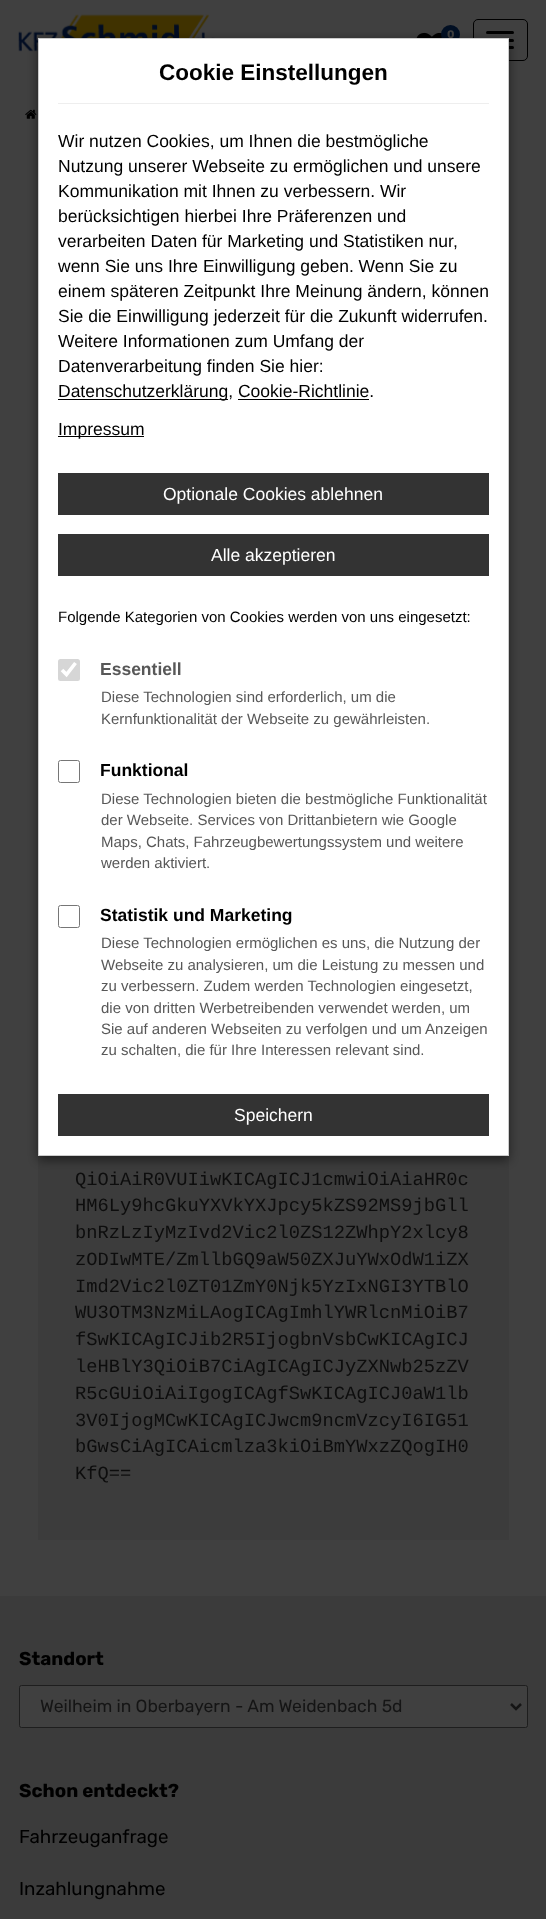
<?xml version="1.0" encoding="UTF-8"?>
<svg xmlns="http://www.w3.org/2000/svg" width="546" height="1919">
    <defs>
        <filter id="blur1" x="-50%" y="-200%" width="200%" height="500%"><feGaussianBlur stdDeviation="5.5"/></filter>
    </defs>
    <rect width="100%" height="100%" fill="#404040"/>
    <image x="18" y="14" width="197" height="38" href="img_01.png"/>
    <image x="416" y="32" width="26" height="6" href="img_02.png"/>
    <circle cx="450.5" cy="34.5" r="9.5" fill="#010F23"/>
    <text x="447" y="38" font-family="Rubik" font-size="11" font-weight="700" fill="#404040">0</text>
    <rect x="473.5" y="19.5" width="54" height="41" rx="4.5" fill="none" stroke="#000000"/>
    <rect x="486" y="31" width="28" height="3" rx="1.5" fill="#000000"/>
    <rect x="486" y="39" width="28" height="3" rx="1.5" fill="#000000"/>
    <rect x="486" y="46" width="28" height="3" rx="1.5" fill="#000000"/>
    <image x="25" y="109" width="12" height="10" href="img_03.png"/>
    <rect x="38" y="1156" width="471" height="384" fill="#3C3C3C"/>
    <rect x="38" y="41" width="471" height="1119" fill="#000000" fill-opacity="0.5" filter="url(#blur1)"/>
    <rect x="38.5" y="38.5" width="470" height="1117" fill="#FFFFFF" stroke="#CCCCCC"/>
    <rect x="58" y="103" width="431" height="1" fill="#EEEEEE"/>
    <text x="159" y="80" font-family="Liberation Sans" font-size="22.5" font-weight="700" fill="#000000">Cookie Einstellungen</text>
    <text font-family="Liberation Sans" font-size="17.5" fill="#000000">
        <tspan x="58" y="147">Wir nutzen Cookies, um Ihnen die bestmögliche</tspan>
        <tspan x="58" y="172">Nutzung unserer Webseite zu ermöglichen und unsere</tspan>
        <tspan x="58" y="197">Kommunikation mit Ihnen zu verbessern. Wir</tspan>
        <tspan x="58" y="222">berücksichtigen hierbei Ihre Präferenzen und</tspan>
        <tspan x="58" y="247">verarbeiten Daten für Marketing und Statistiken nur,</tspan>
        <tspan x="58" y="272">wenn Sie uns Ihre Einwilligung geben. Wenn Sie zu</tspan>
        <tspan x="58" y="297">einem späteren Zeitpunkt Ihre Meinung ändern, können</tspan>
        <tspan x="58" y="322">Sie die Einwilligung jederzeit für die Zukunft widerrufen.</tspan>
        <tspan x="58" y="347">Weitere Informationen zum Umfang der</tspan>
        <tspan x="58" y="372">Datenverarbeitung finden Sie hier:</tspan>
    </text>
    <rect x="58" y="399" width="170" height="1" fill="#000000"/>
    <text x="58" y="397" font-family="Liberation Sans" font-size="17.5" fill="#000000">Datenschutzerklärung, Cookie-Richtlinie.</text>
    <rect x="238" y="399" width="131" height="1" fill="#000000"/>
    <rect x="58" y="436" width="86" height="1" fill="#000000"/>
    <text x="58" y="435" font-family="Liberation Sans" font-size="17.5" fill="#000000">Impressum</text>
    <rect x="58" y="473" width="431" height="42" fill="#333333"/>
    <text x="163" y="500" font-family="Liberation Sans" font-size="17.5" fill="#FFFFFF">Optionale Cookies ablehnen</text>
    <rect x="58" y="534" width="431" height="42" fill="#333333"/>
    <text x="211" y="561" font-family="Liberation Sans" font-size="17.5" fill="#FFFFFF">Alle akzeptieren</text>
    <text x="58" y="622" font-family="Liberation Sans" font-size="15" fill="#000000">Folgende Kategorien von Cookies werden von uns eingesetzt:</text>
    <rect x="58" y="659" width="22" height="22" rx="2.5" fill="#D6D6D6"/>
    <path d="M 62 670 L 66.5 674.5 L 75.5 663" fill="none" stroke="#FFFFFF" stroke-width="3.6"/>
    <text x="100" y="675" font-family="Liberation Sans" font-size="17.5" font-weight="700" fill="#585858">Essentiell</text>
    <text font-family="Liberation Sans" font-size="15" fill="#585858">
        <tspan x="101" y="702">Diese Technologien sind erforderlich, um die</tspan>
        <tspan x="101" y="724">Kernfunktionalität der Webseite zu gewährleisten.</tspan>
    </text>
    <rect x="58.5" y="760.5" width="21" height="22" rx="2" fill="none" stroke="#767676"/>
    <text x="100" y="776" font-family="Liberation Sans" font-size="17.5" font-weight="700" fill="#000000">Funktional</text>
    <text font-family="Liberation Sans" font-size="15" fill="#585858">
        <tspan x="101" y="804">Diese Technologien bieten die bestmögliche Funktionalität</tspan>
        <tspan x="101" y="825">der Webseite. Services von Drittanbietern wie Google</tspan>
        <tspan x="101" y="847">Maps, Chats, Fahrzeugbewertungssystem und weitere</tspan>
        <tspan x="101" y="868">werden aktiviert.</tspan>
    </text>
    <rect x="58.5" y="905.5" width="21" height="22" rx="2" fill="none" stroke="#767676"/>
    <text x="100" y="921" font-family="Liberation Sans" font-size="17.5" font-weight="700" fill="#000000">Statistik und Marketing</text>
    <text font-family="Liberation Sans" font-size="15" fill="#585858">
        <tspan x="101" y="948">Diese Technologien ermöglichen es uns, die Nutzung der</tspan>
        <tspan x="101" y="970">Webseite zu analysieren, um die Leistung zu messen und</tspan>
        <tspan x="101" y="991">zu verbessern. Zudem werden Technologien eingesetzt,</tspan>
        <tspan x="101" y="1013">die von dritten Werbetreibenden verwendet werden, um</tspan>
        <tspan x="101" y="1034">Sie auf anderen Webseiten zu verfolgen und um Anzeigen</tspan>
        <tspan x="101" y="1055">zu schalten, die für Ihre Interessen relevant sind.</tspan>
    </text>
    <rect x="58" y="1094" width="431" height="42" fill="#333333"/>
    <text x="234" y="1121" font-family="Liberation Sans" font-size="17.5" fill="#FFFFFF">Speichern</text>
    <text font-family="Liberation Mono" font-size="18.75" fill="#0D0D0D">
        <tspan x="75" y="1185">QiOiAiR0VUIiwKICAgICJ1cmwiOiAiaHR0c</tspan>
        <tspan x="75" y="1211">HM6Ly9hcGkuYXVkYXJpcy5kZS92MS9jbGll</tspan>
        <tspan x="75" y="1238">bnRzLzIyMzIvd2Vic2l0ZS12ZWhpY2xlcy8</tspan>
        <tspan x="75" y="1265">zODIwMTE/ZmllbGQ9aW50ZXJuYWxOdW1iZX</tspan>
        <tspan x="75" y="1292">Imd2Vic2l0ZT01ZmY0Njk5YzIxNGI3YTBlO</tspan>
        <tspan x="75" y="1318">WU3OTM3NzMiLAogICAgImhlYWRlcnMiOiB7</tspan>
        <tspan x="75" y="1345">fSwKICAgICJib2R5IjogbnVsbCwKICAgICJ</tspan>
        <tspan x="75" y="1372">leHBlY3QiOiB7CiAgICAgICJyZXNwb25zZV</tspan>
        <tspan x="75" y="1399">R5cGUiOiAiIgogICAgfSwKICAgICJ0aW1lb</tspan>
        <tspan x="75" y="1426">3V0IjogMCwKICAgICJwcm9ncmVzcyI6IG51</tspan>
        <tspan x="75" y="1452">bGwsCiAgICAicmlza3kiOiBmYWxzZQogIH0</tspan>
        <tspan x="75" y="1479">KfQ==</tspan>
    </text>
    <rect x="0" y="1596" width="546" height="323" fill="#3B3B3B"/>
    <text x="19" y="1665" font-family="Rubik" font-size="18.75" font-weight="700" fill="#000000">Standort</text>
    <rect x="19.5" y="1685.5" width="508" height="42" rx="2" fill="#404040" stroke="#1E1E1E"/>
    <path d="M 511 1704 L 516 1709 L 521 1704" fill="none" stroke="#151515" stroke-width="2.5"/>
    <text x="40" y="1712" font-family="Rubik" font-size="17.5" fill="#151515">Weilheim in Oberbayern - Am Weidenbach 5d</text>
    <text x="19" y="1797" font-family="Rubik" font-size="18.75" font-weight="700" fill="#000000">Schon entdeckt?</text>
    <text x="19" y="1843" font-family="Rubik" font-size="18.75" fill="#000000">Fahrzeuganfrage</text>
    <text x="19" y="1895" font-family="Rubik" font-size="18.75" fill="#000000">Inzahlungnahme</text>
</svg>
